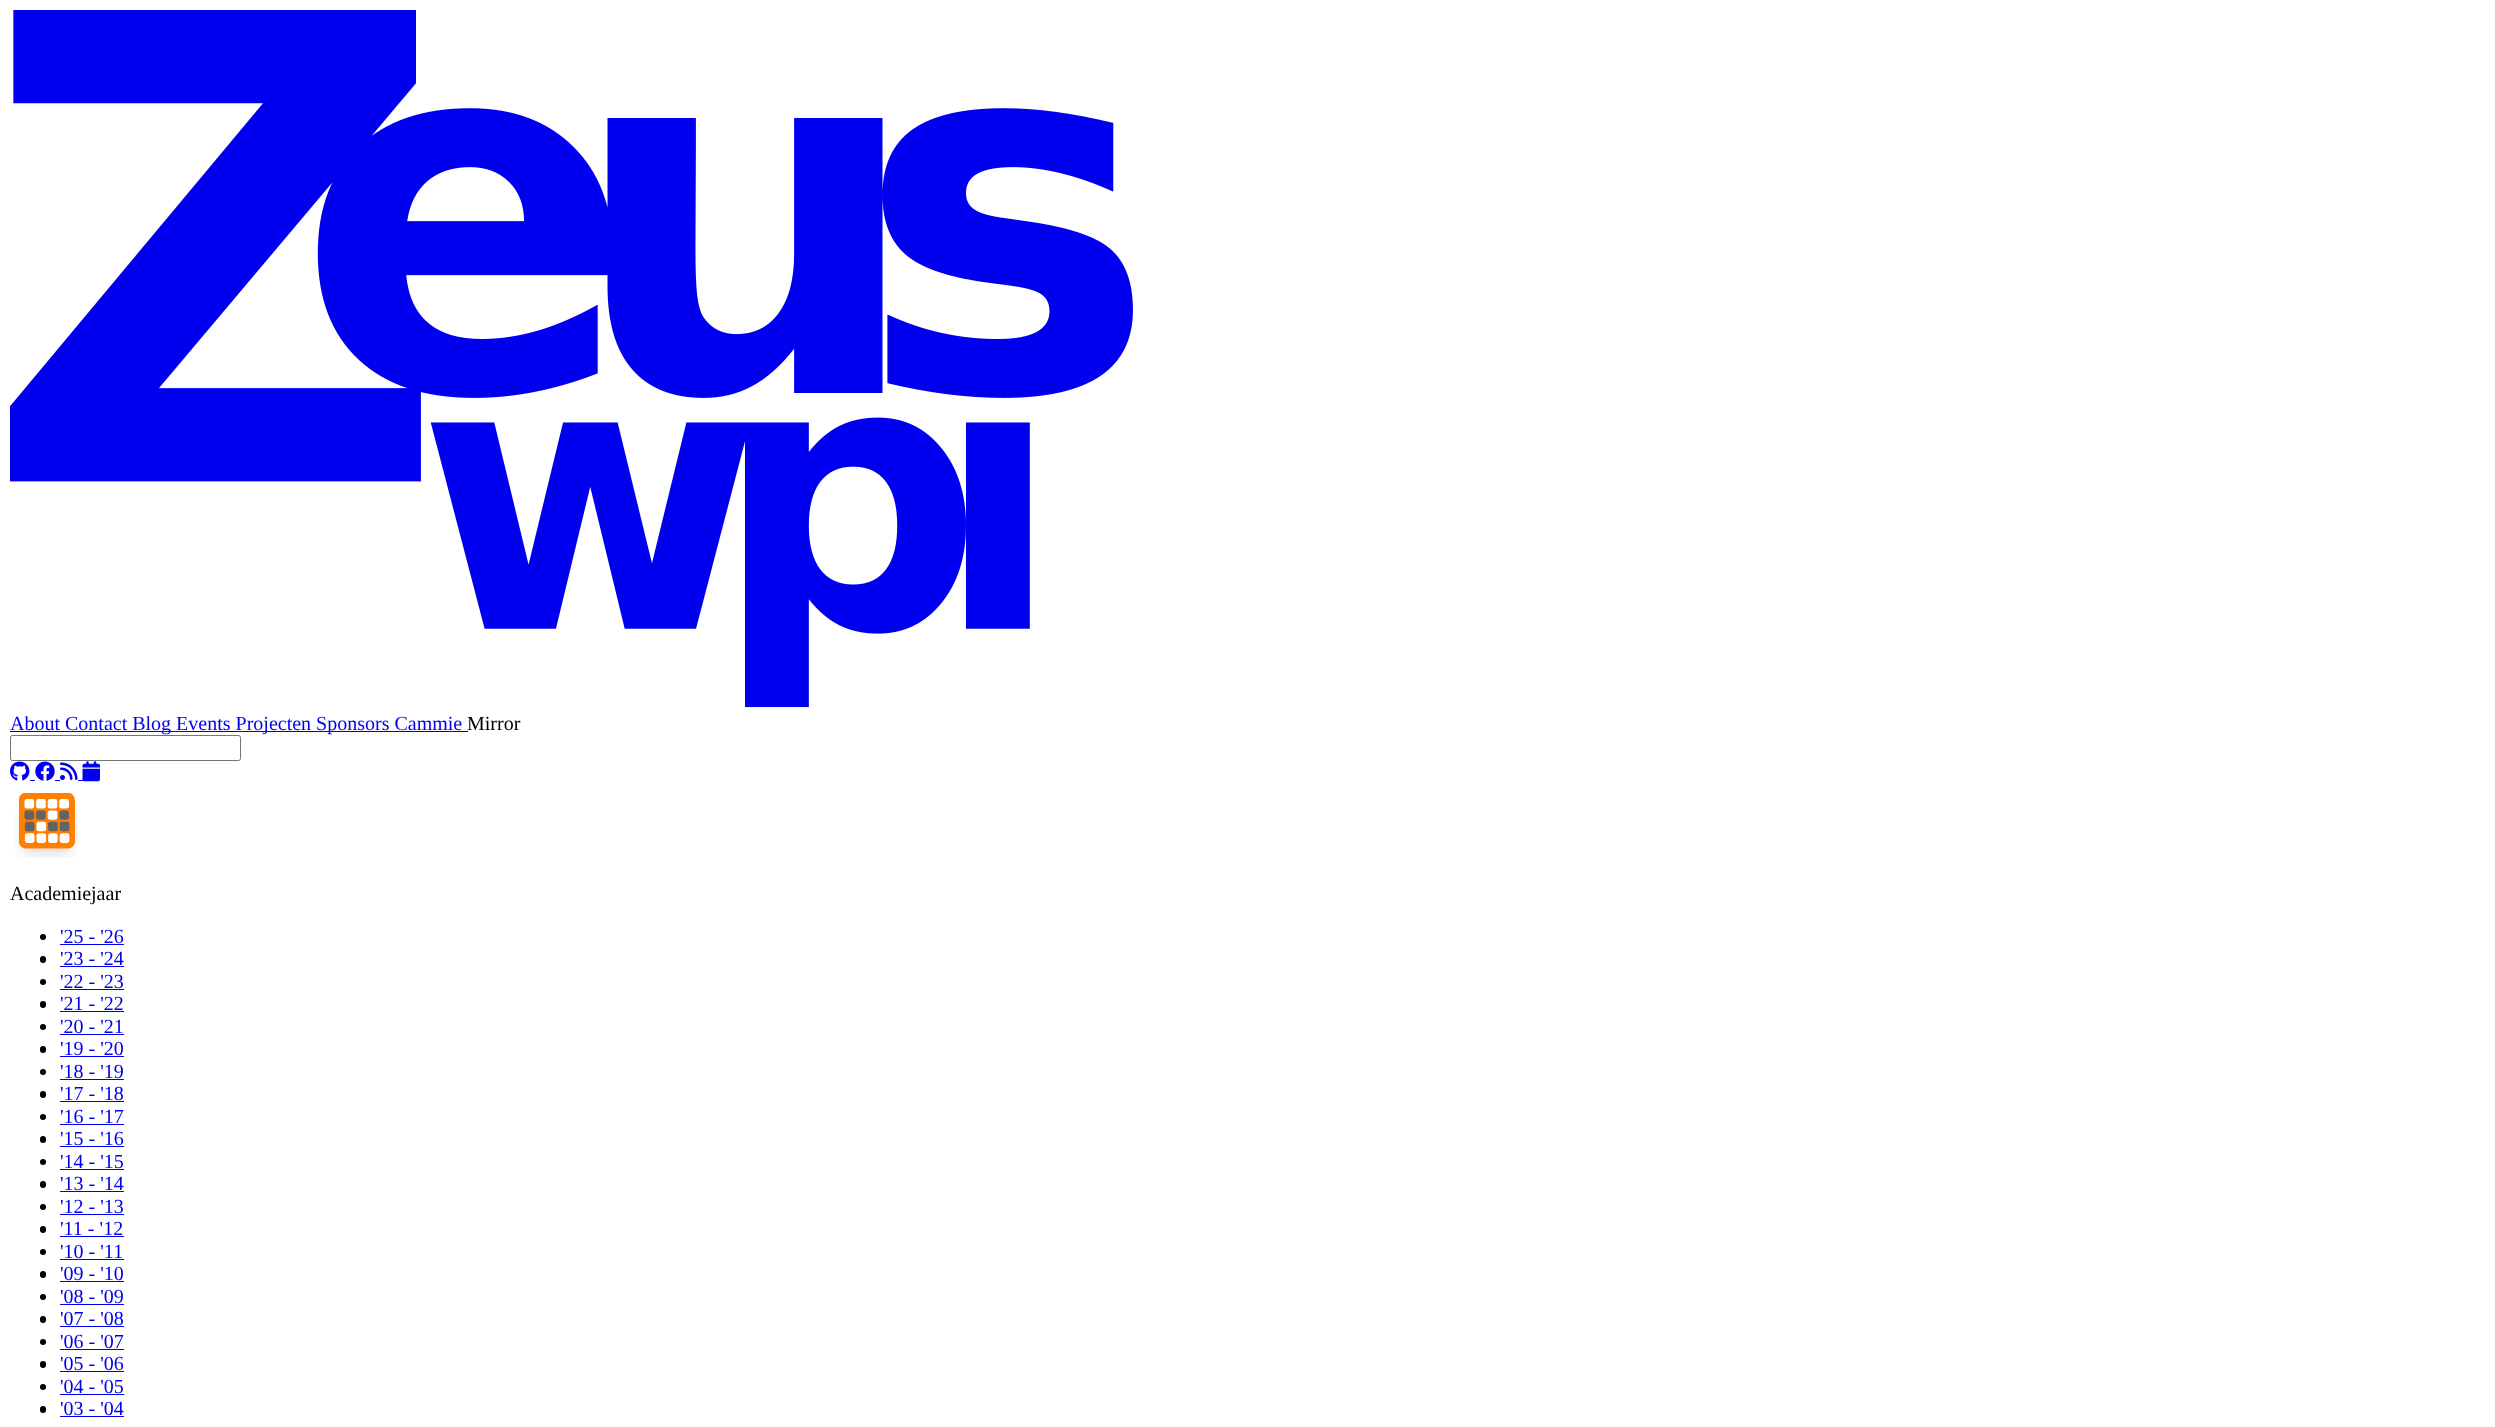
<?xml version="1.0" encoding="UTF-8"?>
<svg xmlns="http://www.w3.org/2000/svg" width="2495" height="1427">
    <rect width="100%" height="100%" fill="#FFFFFF"/>
    <image x="10" y="10" width="1123" height="698" href="img_01.png"/>
    <rect x="10" y="731" width="458" height="1" fill="#0000EE"/>
    <text x="10" y="730" font-family="Liberation Serif" font-size="20" fill="#0000EE">About Contact Blog Events Projecten Sponsors Cammie</text>
    <text x="467" y="730" font-family="Liberation Serif" font-size="20" fill="#000000">Mirror</text>
    <rect x="10.5" y="735.5" width="230" height="25" rx="2" fill="none" stroke="#767676"/>
    <image x="10" y="761" width="20" height="20" href="img_02.png"/>
    <rect x="30" y="780" width="5" height="1" fill="#0000EE"/>
    <image x="35" y="761" width="20" height="20" href="img_03.png"/>
    <rect x="55" y="780" width="5" height="1" fill="#0000EE"/>
    <image x="60" y="762" width="18" height="18" href="img_04.png"/>
    <rect x="78" y="780" width="5" height="1" fill="#0000EE"/>
    <image x="82" y="761" width="18" height="21" href="img_05.png"/>
    <image x="15" y="793" width="63" height="65" href="img_06.png"/>
    <text x="10" y="900" font-family="Liberation Serif" font-size="20" fill="#000000">Academiejaar</text>
    <circle cx="43" cy="937" r="3" fill="#000000"/>
    <text x="60" y="943" font-family="Liberation Serif" font-size="20" fill="#0000EE">'25 - '26</text>
    <rect x="60" y="944" width="64" height="1" fill="#0000EE"/>
    <rect x="40" y="956" width="6" height="7" rx="3" fill="#000000"/>
    <text x="60" y="965" font-family="Liberation Serif" font-size="20" fill="#0000EE">'23 - '24</text>
    <rect x="60" y="966" width="64" height="1" fill="#0000EE"/>
    <circle cx="43" cy="982" r="3" fill="#000000"/>
    <text x="60" y="988" font-family="Liberation Serif" font-size="20" fill="#0000EE">'22 - '23</text>
    <rect x="60" y="989" width="64" height="1" fill="#0000EE"/>
    <rect x="40" y="1001" width="6" height="7" rx="3" fill="#000000"/>
    <text x="60" y="1010" font-family="Liberation Serif" font-size="20" fill="#0000EE">'21 - '22</text>
    <rect x="60" y="1011" width="64" height="1" fill="#0000EE"/>
    <circle cx="43" cy="1027" r="3" fill="#000000"/>
    <text x="60" y="1033" font-family="Liberation Serif" font-size="20" fill="#0000EE">'20 - '21</text>
    <rect x="60" y="1034" width="64" height="1" fill="#0000EE"/>
    <rect x="40" y="1046" width="6" height="7" rx="3" fill="#000000"/>
    <text x="60" y="1055" font-family="Liberation Serif" font-size="20" fill="#0000EE">'19 - '20</text>
    <rect x="60" y="1056" width="64" height="1" fill="#0000EE"/>
    <circle cx="43" cy="1072" r="3" fill="#000000"/>
    <text x="60" y="1078" font-family="Liberation Serif" font-size="20" fill="#0000EE">'18 - '19</text>
    <rect x="60" y="1079" width="64" height="1" fill="#0000EE"/>
    <rect x="40" y="1091" width="6" height="7" rx="3" fill="#000000"/>
    <text x="60" y="1100" font-family="Liberation Serif" font-size="20" fill="#0000EE">'17 - '18</text>
    <rect x="60" y="1101" width="64" height="1" fill="#0000EE"/>
    <circle cx="43" cy="1117" r="3" fill="#000000"/>
    <text x="60" y="1123" font-family="Liberation Serif" font-size="20" fill="#0000EE">'16 - '17</text>
    <rect x="60" y="1124" width="64" height="1" fill="#0000EE"/>
    <rect x="40" y="1136" width="6" height="7" rx="3" fill="#000000"/>
    <text x="60" y="1145" font-family="Liberation Serif" font-size="20" fill="#0000EE">'15 - '16</text>
    <rect x="60" y="1146" width="64" height="1" fill="#0000EE"/>
    <circle cx="43" cy="1162" r="3" fill="#000000"/>
    <text x="60" y="1168" font-family="Liberation Serif" font-size="20" fill="#0000EE">'14 - '15</text>
    <rect x="60" y="1169" width="64" height="1" fill="#0000EE"/>
    <rect x="40" y="1181" width="6" height="7" rx="3" fill="#000000"/>
    <text x="60" y="1190" font-family="Liberation Serif" font-size="20" fill="#0000EE">'13 - '14</text>
    <rect x="60" y="1191" width="64" height="1" fill="#0000EE"/>
    <circle cx="43" cy="1207" r="3" fill="#000000"/>
    <text x="60" y="1213" font-family="Liberation Serif" font-size="20" fill="#0000EE">'12 - '13</text>
    <rect x="60" y="1214" width="64" height="1" fill="#0000EE"/>
    <rect x="40" y="1226" width="6" height="7" rx="3" fill="#000000"/>
    <text x="60" y="1235" font-family="Liberation Serif" font-size="20" fill="#0000EE">'11 - '12</text>
    <rect x="60" y="1236" width="64" height="1" fill="#0000EE"/>
    <circle cx="43" cy="1252" r="3" fill="#000000"/>
    <text x="60" y="1258" font-family="Liberation Serif" font-size="20" fill="#0000EE">'10 - '11</text>
    <rect x="60" y="1259" width="64" height="1" fill="#0000EE"/>
    <rect x="40" y="1271" width="6" height="7" rx="3" fill="#000000"/>
    <text x="60" y="1280" font-family="Liberation Serif" font-size="20" fill="#0000EE">'09 - '10</text>
    <rect x="60" y="1281" width="64" height="1" fill="#0000EE"/>
    <circle cx="43" cy="1297" r="3" fill="#000000"/>
    <text x="60" y="1303" font-family="Liberation Serif" font-size="20" fill="#0000EE">'08 - '09</text>
    <rect x="60" y="1304" width="64" height="1" fill="#0000EE"/>
    <rect x="40" y="1316" width="6" height="7" rx="3" fill="#000000"/>
    <text x="60" y="1325" font-family="Liberation Serif" font-size="20" fill="#0000EE">'07 - '08</text>
    <rect x="60" y="1326" width="64" height="1" fill="#0000EE"/>
    <circle cx="43" cy="1342" r="3" fill="#000000"/>
    <text x="60" y="1348" font-family="Liberation Serif" font-size="20" fill="#0000EE">'06 - '07</text>
    <rect x="60" y="1349" width="64" height="1" fill="#0000EE"/>
    <rect x="40" y="1361" width="6" height="7" rx="3" fill="#000000"/>
    <text x="60" y="1370" font-family="Liberation Serif" font-size="20" fill="#0000EE">'05 - '06</text>
    <rect x="60" y="1371" width="64" height="1" fill="#0000EE"/>
    <circle cx="43" cy="1387" r="3" fill="#000000"/>
    <text x="60" y="1393" font-family="Liberation Serif" font-size="20" fill="#0000EE">'04 - '05</text>
    <rect x="60" y="1394" width="64" height="1" fill="#0000EE"/>
    <rect x="40" y="1406" width="6" height="7" rx="3" fill="#000000"/>
    <text x="60" y="1415" font-family="Liberation Serif" font-size="20" fill="#0000EE">'03 - '04</text>
    <rect x="60" y="1416" width="64" height="1" fill="#0000EE"/>
</svg>
